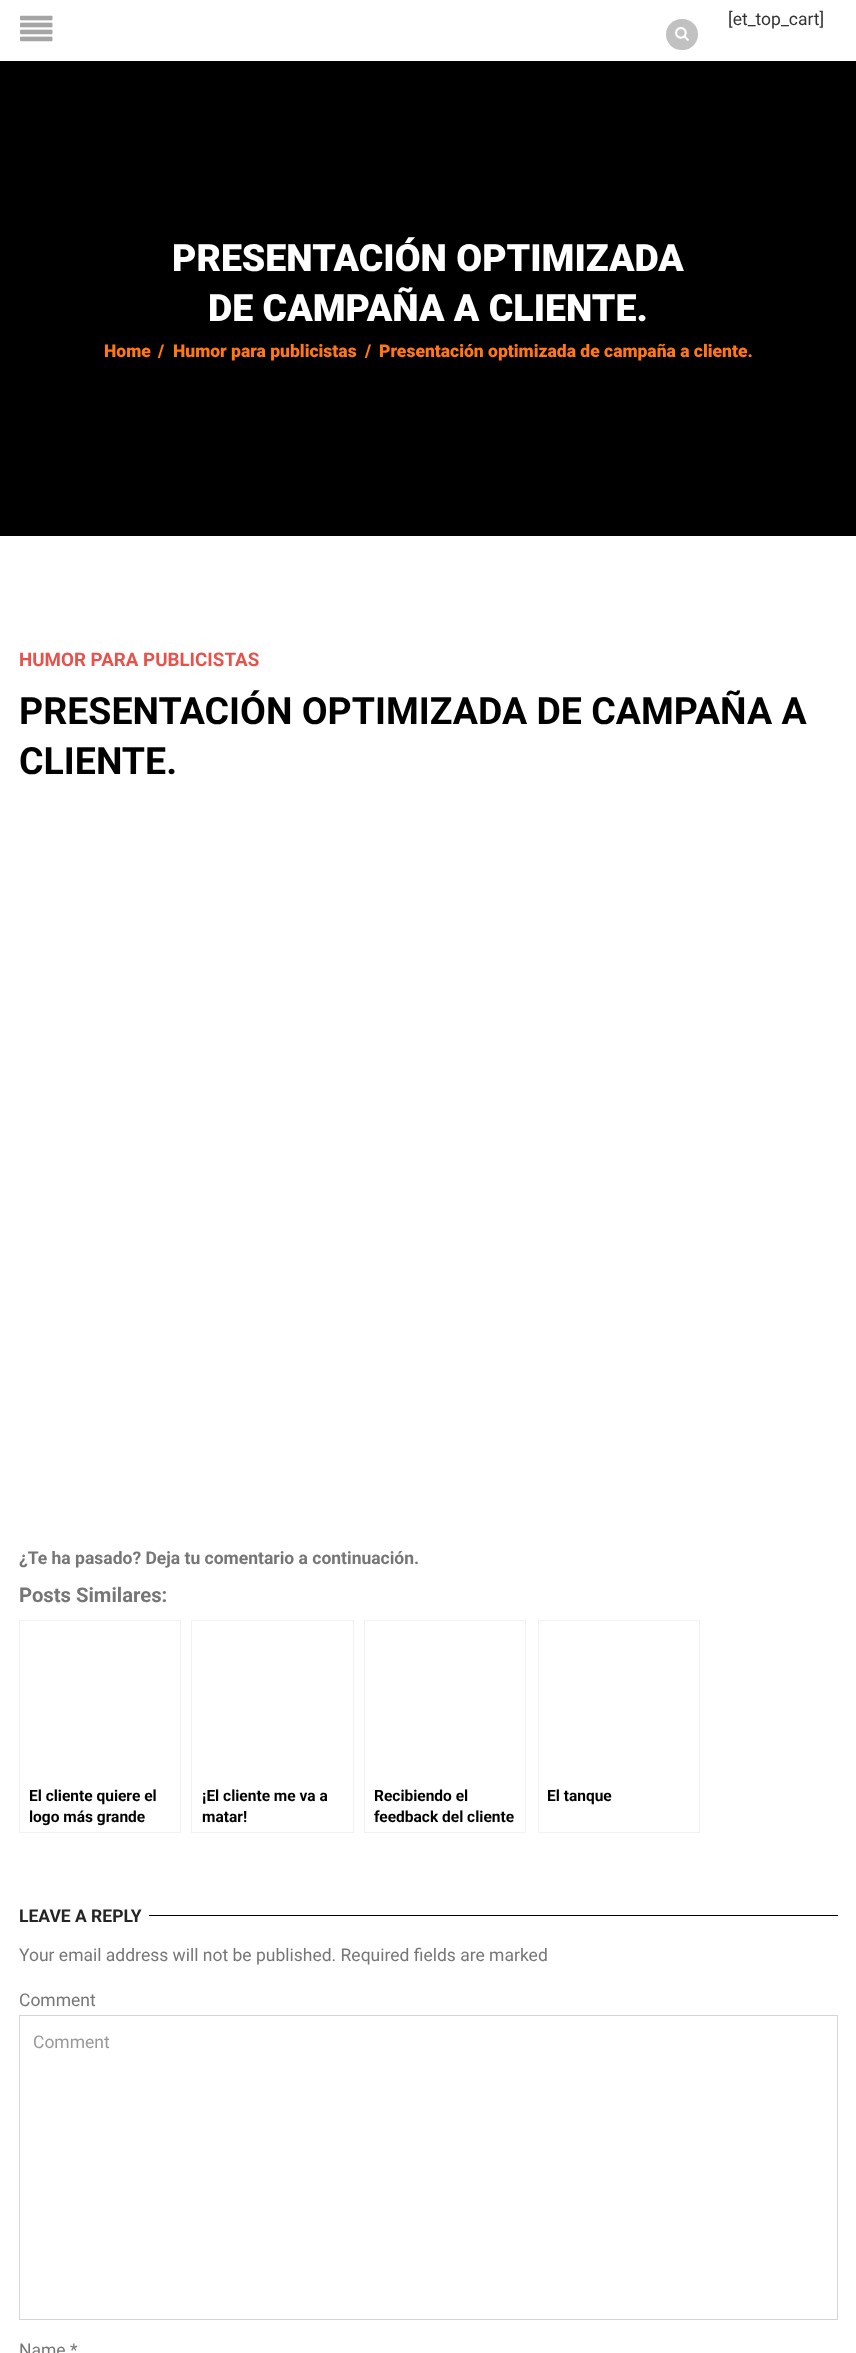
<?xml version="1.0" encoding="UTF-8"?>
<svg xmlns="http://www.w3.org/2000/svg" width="856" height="2353">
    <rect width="100%" height="100%" fill="#FFFFFF"/>
    <image x="20" y="15" width="33" height="27" href="img_01.png"/>
    <rect x="666" y="19" width="32" height="31" rx="15.5" fill="#C1C1C1"/>
    <image x="675" y="27" width="14" height="14" href="img_02.png"/>
    <text x="728" y="25" font-family="Roboto" font-size="17.5" fill="#333333">[et_top_cart]</text>
    <rect x="0" y="61" width="856" height="475" fill="#000000"/>
    <text x="172" y="271" font-family="Roboto" font-size="37.5" font-weight="900" fill="#FFFFFF">PRESENTACIÓN OPTIMIZADA</text>
    <text x="208" y="321" font-family="Roboto" font-size="37.5" font-weight="900" fill="#FFFFFF">DE CAMPAÑA A CLIENTE.</text>
    <text x="104" y="357" font-family="Roboto" font-size="17.5" font-weight="900" fill="#FF7716">Home</text>
    <text x="158" y="357" font-family="Roboto" font-size="17.5" font-weight="900" fill="#FF7716">/</text>
    <text x="173" y="357" font-family="Roboto" font-size="17.5" font-weight="900" fill="#FF7716">Humor para publicistas</text>
    <text x="365" y="357" font-family="Roboto" font-size="17.5" font-weight="900" fill="#FF7716">/</text>
    <text x="379" y="357" font-family="Roboto" font-size="17.5" font-weight="900" fill="#FF7716">Presentación optimizada de campaña a cliente.</text>
    <text x="19" y="666" font-family="Roboto" font-size="18.75" font-weight="700" fill="#E5534C">HUMOR PARA PUBLICISTAS</text>
    <text font-family="Roboto" font-size="37.5" font-weight="700" fill="#000000">
        <tspan x="19" y="724">PRESENTACIÓN OPTIMIZADA DE CAMPAÑA A</tspan>
        <tspan x="19" y="774">CLIENTE.</tspan>
    </text>
    <text x="19" y="1564" font-family="Roboto" font-size="17.5" font-weight="700" fill="#767676">¿Te ha pasado? Deja tu comentario a continuación.</text>
    <text x="19" y="1602" font-family="Roboto" font-size="20.25" font-weight="700" fill="#767676">Posts Similares:</text>
    <rect x="19.5" y="1620.5" width="161" height="212" fill="none" stroke="#F2F2F2"/>
    <text font-family="Roboto" font-size="15.5" font-weight="700" fill="#000000">
        <tspan x="29" y="1801">El cliente quiere el</tspan>
        <tspan x="29" y="1822">logo más grande</tspan>
    </text>
    <rect x="191.5" y="1620.5" width="162" height="212" fill="none" stroke="#F2F2F2"/>
    <text font-family="Roboto" font-size="15.5" font-weight="700" fill="#000000">
        <tspan x="202" y="1801">¡El cliente me va a</tspan>
        <tspan x="202" y="1822">matar!</tspan>
    </text>
    <rect x="364.5" y="1620.5" width="161" height="212" fill="none" stroke="#F2F2F2"/>
    <text font-family="Roboto" font-size="15.5" font-weight="700" fill="#000000">
        <tspan x="374" y="1801">Recibiendo el</tspan>
        <tspan x="374" y="1822">feedback del cliente</tspan>
    </text>
    <rect x="538.5" y="1620.5" width="161" height="212" fill="none" stroke="#F2F2F2"/>
    <text x="547" y="1801" font-family="Roboto" font-size="15.5" font-weight="700" fill="#000000">El tanque</text>
    <text x="19" y="1922" font-family="Roboto" font-size="17.5" font-weight="700" fill="#252525">LEAVE A REPLY</text>
    <rect x="149" y="1915" width="689" height="1" fill="#000000"/>
    <text x="19" y="1961" font-family="Roboto" font-size="17.5" fill="#767676">Your email address will not be published. Required fields are marked</text>
    <text x="19" y="2006" font-family="Roboto" font-size="17.5" fill="#767676">Comment</text>
    <rect x="19.5" y="2015.5" width="818" height="304" fill="none" stroke="#D5D5D5"/>
    <text x="33" y="2048" font-family="Roboto" font-size="17.5" fill="#999999">Comment</text>
    <text x="19" y="2356" font-family="Roboto" font-size="17.5" fill="#767676">Name *</text>
</svg>
